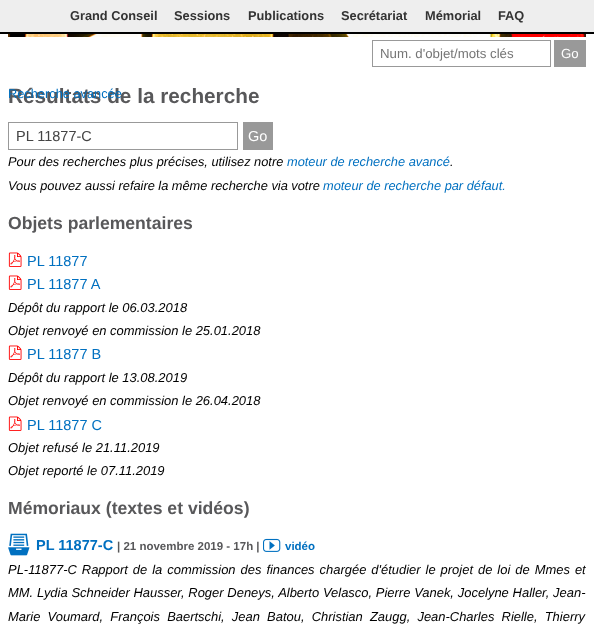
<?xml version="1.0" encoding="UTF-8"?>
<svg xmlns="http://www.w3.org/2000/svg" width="594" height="629">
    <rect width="100%" height="100%" fill="#FFFFFF"/>
    <rect x="0" y="0" width="594" height="32" fill="#EEEEEE"/>
    <rect x="0" y="32" width="594" height="2" fill="#000000"/>
    <text x="70" y="20" font-family="Liberation Sans" font-size="12.8" font-weight="700" fill="#333333">Grand Conseil</text>
    <text x="174" y="20" font-family="Liberation Sans" font-size="12.8" font-weight="700" fill="#333333">Sessions</text>
    <text x="248" y="20" font-family="Liberation Sans" font-size="12.8" font-weight="700" fill="#333333">Publications</text>
    <text x="341" y="20" font-family="Liberation Sans" font-size="12.8" font-weight="700" fill="#333333">Secrétariat</text>
    <text x="425" y="20" font-family="Liberation Sans" font-size="12.8" font-weight="700" fill="#333333">Mémorial</text>
    <text x="498" y="20" font-family="Liberation Sans" font-size="12.8" font-weight="700" fill="#333333">FAQ</text>
    <rect x="372.5" y="40.5" width="178" height="26" fill="none" stroke="#999999"/>
    <text x="380" y="58" font-family="Liberation Sans" font-size="13.25" fill="#757575">Num. d'objet/mots clés</text>
    <rect x="554" y="40" width="32" height="27" fill="#999999"/>
    <text x="561" y="58" font-family="Liberation Sans" font-size="13.25" fill="#FFFFFF">Go</text>
    <text x="8" y="103" font-family="Liberation Sans" font-size="20.75" font-weight="700" fill="#58585A">Résultats de la recherche</text>
    <text x="8" y="98" font-family="Liberation Sans" font-size="12.8" fill="#0070C0">Recherche avancée</text>
    <image x="8" y="34" width="578" height="3" href="img_01.png"/>
    <rect x="8.5" y="122.5" width="229" height="27" fill="none" stroke="#999999"/>
    <text x="16" y="141" font-family="Liberation Sans" font-size="14.5" fill="#444444">PL 11877-C</text>
    <rect x="243" y="122" width="30" height="28" fill="#999999"/>
    <text x="248" y="141" font-family="Liberation Sans" font-size="14.5" fill="#FFFFFF">Go</text>
    <text x="8" y="166" font-family="Liberation Sans" font-size="12.8" font-style="italic" fill="#000000">Pour des recherches plus précises, utilisez notre</text>
    <text x="287" y="166" font-family="Liberation Sans" font-size="12.8" font-style="italic" fill="#0070C0">moteur de recherche avancé</text>
    <text x="450" y="166" font-family="Liberation Sans" font-size="12.8" font-style="italic" fill="#000000">.</text>
    <text x="8" y="190" font-family="Liberation Sans" font-size="12.8" font-style="italic" fill="#000000">Vous pouvez aussi refaire la même recherche via votre</text>
    <text x="323" y="190" font-family="Liberation Sans" font-size="12.8" font-style="italic" fill="#0070C0">moteur de recherche par défaut.</text>
    <text x="8" y="229" font-family="Liberation Sans" font-size="17.6" font-weight="700" fill="#58585A">Objets parlementaires</text>
    <image x="8" y="252" width="14" height="15" href="img_02.png"/>
    <text x="27" y="266" font-family="Liberation Sans" font-size="14.5" fill="#0070C0">PL 11877</text>
    <image x="8" y="275" width="14" height="15" href="img_02.png"/>
    <text x="27" y="289" font-family="Liberation Sans" font-size="14.5" fill="#0070C0">PL 11877 A</text>
    <text font-family="Liberation Sans" font-size="12.95" font-style="italic" fill="#000000">
        <tspan x="8" y="312">Dépôt du rapport le 06.03.2018</tspan>
        <tspan x="8" y="335">Objet renvoyé en commission le 25.01.2018</tspan>
    </text>
    <image x="8" y="345" width="14" height="15" href="img_02.png"/>
    <text x="27" y="359" font-family="Liberation Sans" font-size="14.5" fill="#0070C0">PL 11877 B</text>
    <text font-family="Liberation Sans" font-size="12.95" font-style="italic" fill="#000000">
        <tspan x="8" y="382">Dépôt du rapport le 13.08.2019</tspan>
        <tspan x="8" y="405">Objet renvoyé en commission le 26.04.2018</tspan>
    </text>
    <image x="8" y="416" width="14" height="15" href="img_02.png"/>
    <text x="27" y="430" font-family="Liberation Sans" font-size="14.5" fill="#0070C0">PL 11877 C</text>
    <text font-family="Liberation Sans" font-size="12.95" font-style="italic" fill="#000000">
        <tspan x="8" y="452">Objet refusé le 21.11.2019</tspan>
        <tspan x="8" y="475">Objet reporté le 07.11.2019</tspan>
    </text>
    <text x="8" y="514" font-family="Liberation Sans" font-size="17.6" font-weight="700" fill="#58585A">Mémoriaux (textes et vidéos)</text>
    <image x="8" y="533" width="22" height="23" href="img_03.png"/>
    <text x="36" y="550" font-family="Liberation Sans" font-size="14.5" font-weight="700" fill="#0070C0">PL 11877-C</text>
    <text x="117" y="550" font-family="Liberation Sans" font-size="11.5" font-weight="700" fill="#58585A">| 21 novembre 2019 - 17h |</text>
    <image x="263" y="538" width="18" height="14" href="img_04.png"/>
    <text x="285" y="550" font-family="Liberation Sans" font-size="11.5" font-weight="700" fill="#0070C0">vidéo</text>
    <text font-family="Liberation Sans" font-size="12.95" font-style="italic" fill="#000000">
        <tspan x="8" y="574" word-spacing="1.4">PL-11877-C Rapport de la commission des finances chargée d'étudier le projet de loi de Mmes et</tspan>
        <tspan x="8" y="597" word-spacing="0.2">MM. Lydia Schneider Hausser, Roger Deneys, Alberto Velasco, Pierre Vanek, Jocelyne Haller, Jean-</tspan>
        <tspan x="8" y="621" word-spacing="3.6">Marie Voumard, François Baertschi, Jean Batou, Christian Zaugg, Jean-Charles Rielle, Thierry</tspan>
    </text>
</svg>
